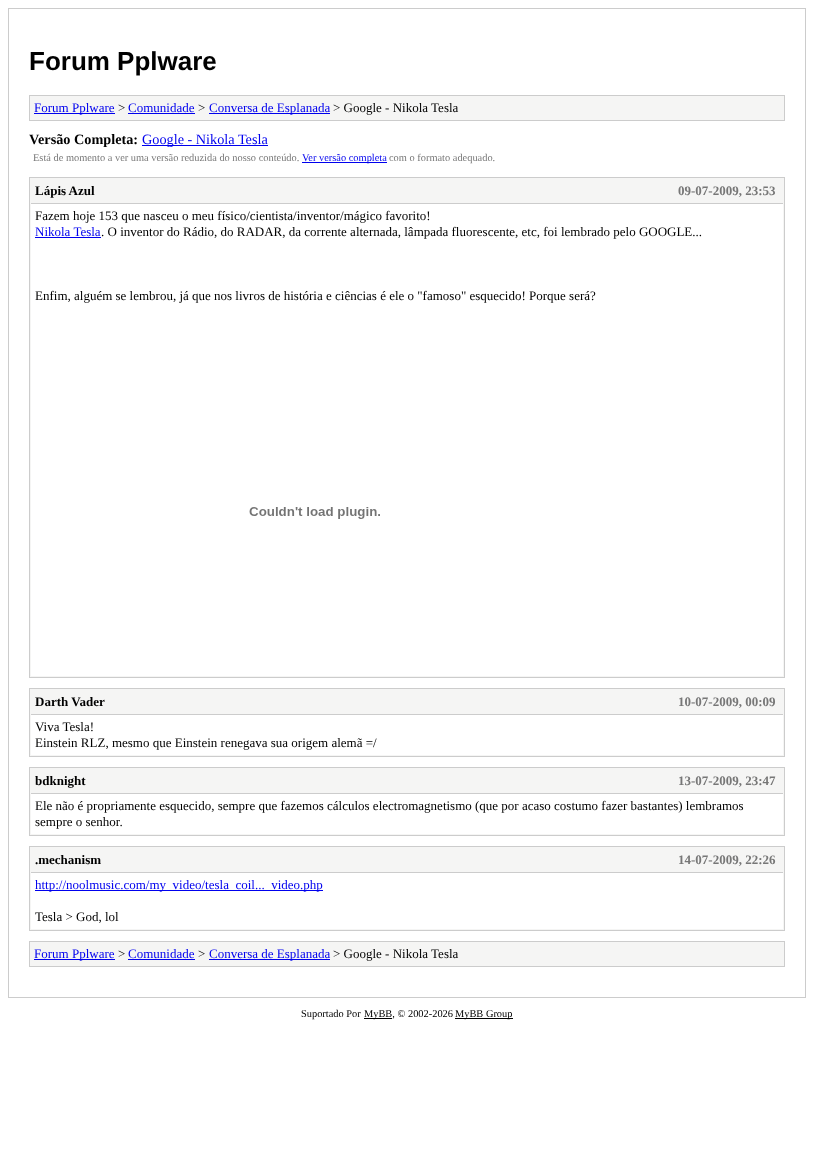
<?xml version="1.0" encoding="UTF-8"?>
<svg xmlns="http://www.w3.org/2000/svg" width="814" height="1156">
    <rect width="100%" height="100%" fill="#FFFFFF"/>
    <rect x="8.5" y="8.5" width="797" height="989" fill="none" stroke="#CCCCCC"/>
    <text x="29" y="70" font-family="Liberation Sans" font-size="26" font-weight="700" fill="#000000">Forum Pplware</text>
    <rect x="29.5" y="95.5" width="755" height="25" fill="#F5F5F4" stroke="#CCCCCC"/>
    <rect x="34" y="113" width="81" height="1" fill="#0000EE"/>
    <text x="34" y="112" font-family="Liberation Serif" font-size="13" fill="#0000EE">Forum Pplware</text>
    <text x="118" y="112" font-family="Liberation Serif" font-size="13" fill="#000000">&gt;</text>
    <text x="128" y="112" font-family="Liberation Serif" font-size="13" fill="#0000EE">Comunidade</text>
    <rect x="128" y="113" width="67" height="1" fill="#0000EE"/>
    <text x="198" y="112" font-family="Liberation Serif" font-size="13" fill="#000000">&gt;</text>
    <rect x="209" y="113" width="121" height="1" fill="#0000EE"/>
    <text x="209" y="112" font-family="Liberation Serif" font-size="13" fill="#0000EE">Conversa de Esplanada</text>
    <text x="333" y="112" font-family="Liberation Serif" font-size="13" fill="#000000">&gt; Google - Nikola Tesla</text>
    <text x="29" y="144" font-family="Liberation Serif" font-size="14.25" font-weight="700" fill="#000000">Versão Completa:</text>
    <rect x="142" y="145" width="126" height="1" fill="#0000EE"/>
    <text x="142" y="144" font-family="Liberation Serif" font-size="14.25" fill="#0000EE">Google - Nikola Tesla</text>
    <text x="33" y="161" font-family="Liberation Serif" font-size="10.4" fill="#777777">Está de momento a ver uma versão reduzida do nosso conteúdo.</text>
    <rect x="302" y="162" width="85" height="1" fill="#0000EE"/>
    <text x="302" y="161" font-family="Liberation Serif" font-size="10.4" fill="#0000EE">Ver versão completa</text>
    <text x="389" y="161" font-family="Liberation Serif" font-size="10.4" fill="#777777">com o formato adequado.</text>
    <rect x="29.5" y="177.5" width="755" height="500" fill="#F5F5F4" stroke="#CCCCCC"/>
    <rect x="31" y="203" width="752" height="1" fill="#CCCCCC"/>
    <text x="35" y="195" font-family="Liberation Serif" font-size="13" font-weight="700" fill="#000000">Lápis Azul</text>
    <text x="678" y="195" font-family="Liberation Serif" font-size="13" font-weight="700" fill="#777777">09-07-2009, 23:53</text>
    <rect x="31" y="204" width="752" height="472" fill="#FFFFFF"/>
    <text x="35" y="220" font-family="Liberation Serif" font-size="13" fill="#000000">Fazem hoje 153 que nasceu o meu físico/cientista/inventor/mágico favorito!</text>
    <text x="35" y="236" font-family="Liberation Serif" font-size="13" fill="#0000EE">Nikola Tesla</text>
    <rect x="35" y="237" width="66" height="1" fill="#0000EE"/>
    <text x="101" y="236" font-family="Liberation Serif" font-size="13" fill="#000000">. O inventor do Rádio, do RADAR, da corrente alternada, lâmpada fluorescente, etc, foi lembrado pelo GOOGLE...</text>
    <text x="35" y="300" font-family="Liberation Serif" font-size="13" fill="#000000">Enfim, alguém se lembrou, já que nos livros de história e ciências é ele o "famoso" esquecido! Porque será?</text>
    <image x="249" y="507" width="131" height="12" href="img_01.png"/>
    <rect x="29.5" y="688.5" width="755" height="68" fill="#F5F5F4" stroke="#CCCCCC"/>
    <rect x="31" y="714" width="752" height="1" fill="#CCCCCC"/>
    <text x="35" y="706" font-family="Liberation Serif" font-size="13" font-weight="700" fill="#000000">Darth Vader</text>
    <text x="678" y="706" font-family="Liberation Serif" font-size="13" font-weight="700" fill="#777777">10-07-2009, 00:09</text>
    <rect x="31" y="715" width="752" height="40" fill="#FFFFFF"/>
    <text font-family="Liberation Serif" font-size="13" fill="#000000">
        <tspan x="35" y="731">Viva Tesla!</tspan>
        <tspan x="35" y="747">Einstein RLZ, mesmo que Einstein renegava sua origem alemã =/</tspan>
    </text>
    <rect x="29.5" y="767.5" width="755" height="68" fill="#F5F5F4" stroke="#CCCCCC"/>
    <rect x="31" y="793" width="752" height="1" fill="#CCCCCC"/>
    <text x="35" y="785" font-family="Liberation Serif" font-size="13" font-weight="700" fill="#000000">bdknight</text>
    <text x="678" y="785" font-family="Liberation Serif" font-size="13" font-weight="700" fill="#777777">13-07-2009, 23:47</text>
    <rect x="31" y="794" width="752" height="40" fill="#FFFFFF"/>
    <text font-family="Liberation Serif" font-size="13" fill="#000000">
        <tspan x="35" y="810">Ele não é propriamente esquecido, sempre que fazemos cálculos electromagnetismo (que por acaso costumo fazer bastantes) lembramos</tspan>
        <tspan x="35" y="826">sempre o senhor.</tspan>
    </text>
    <rect x="29.5" y="846.5" width="755" height="84" fill="#F5F5F4" stroke="#CCCCCC"/>
    <rect x="31" y="872" width="752" height="1" fill="#CCCCCC"/>
    <text x="35" y="864" font-family="Liberation Serif" font-size="13" font-weight="700" fill="#000000">.mechanism</text>
    <text x="678" y="864" font-family="Liberation Serif" font-size="13" font-weight="700" fill="#777777">14-07-2009, 22:26</text>
    <rect x="31" y="873" width="752" height="56" fill="#FFFFFF"/>
    <rect x="35" y="890" width="288" height="1" fill="#0000EE"/>
    <text x="35" y="889" font-family="Liberation Serif" font-size="13" fill="#0000EE">http://noolmusic.com/my_video/tesla_coil..._video.php</text>
    <text x="35" y="921" font-family="Liberation Serif" font-size="13" fill="#000000">Tesla &gt; God, lol</text>
    <rect x="29.5" y="941.5" width="755" height="25" fill="#F5F5F4" stroke="#CCCCCC"/>
    <rect x="34" y="959" width="81" height="1" fill="#0000EE"/>
    <text x="34" y="958" font-family="Liberation Serif" font-size="13" fill="#0000EE">Forum Pplware</text>
    <text x="118" y="958" font-family="Liberation Serif" font-size="13" fill="#000000">&gt;</text>
    <text x="128" y="958" font-family="Liberation Serif" font-size="13" fill="#0000EE">Comunidade</text>
    <rect x="128" y="959" width="67" height="1" fill="#0000EE"/>
    <text x="198" y="958" font-family="Liberation Serif" font-size="13" fill="#000000">&gt;</text>
    <rect x="209" y="959" width="121" height="1" fill="#0000EE"/>
    <text x="209" y="958" font-family="Liberation Serif" font-size="13" fill="#0000EE">Conversa de Esplanada</text>
    <text x="333" y="958" font-family="Liberation Serif" font-size="13" fill="#000000">&gt; Google - Nikola Tesla</text>
    <text x="301" y="1017" font-family="Liberation Serif" font-size="10.4" fill="#000000">Suportado Por</text>
    <rect x="364" y="1018" width="28" height="1" fill="#000000"/>
    <text x="364" y="1017" font-family="Liberation Serif" font-size="10.4" fill="#000000">MyBB, © 2002-2026</text>
    <rect x="455" y="1018" width="58" height="1" fill="#000000"/>
    <text x="455" y="1017" font-family="Liberation Serif" font-size="10.4" fill="#000000">MyBB Group</text>
</svg>
